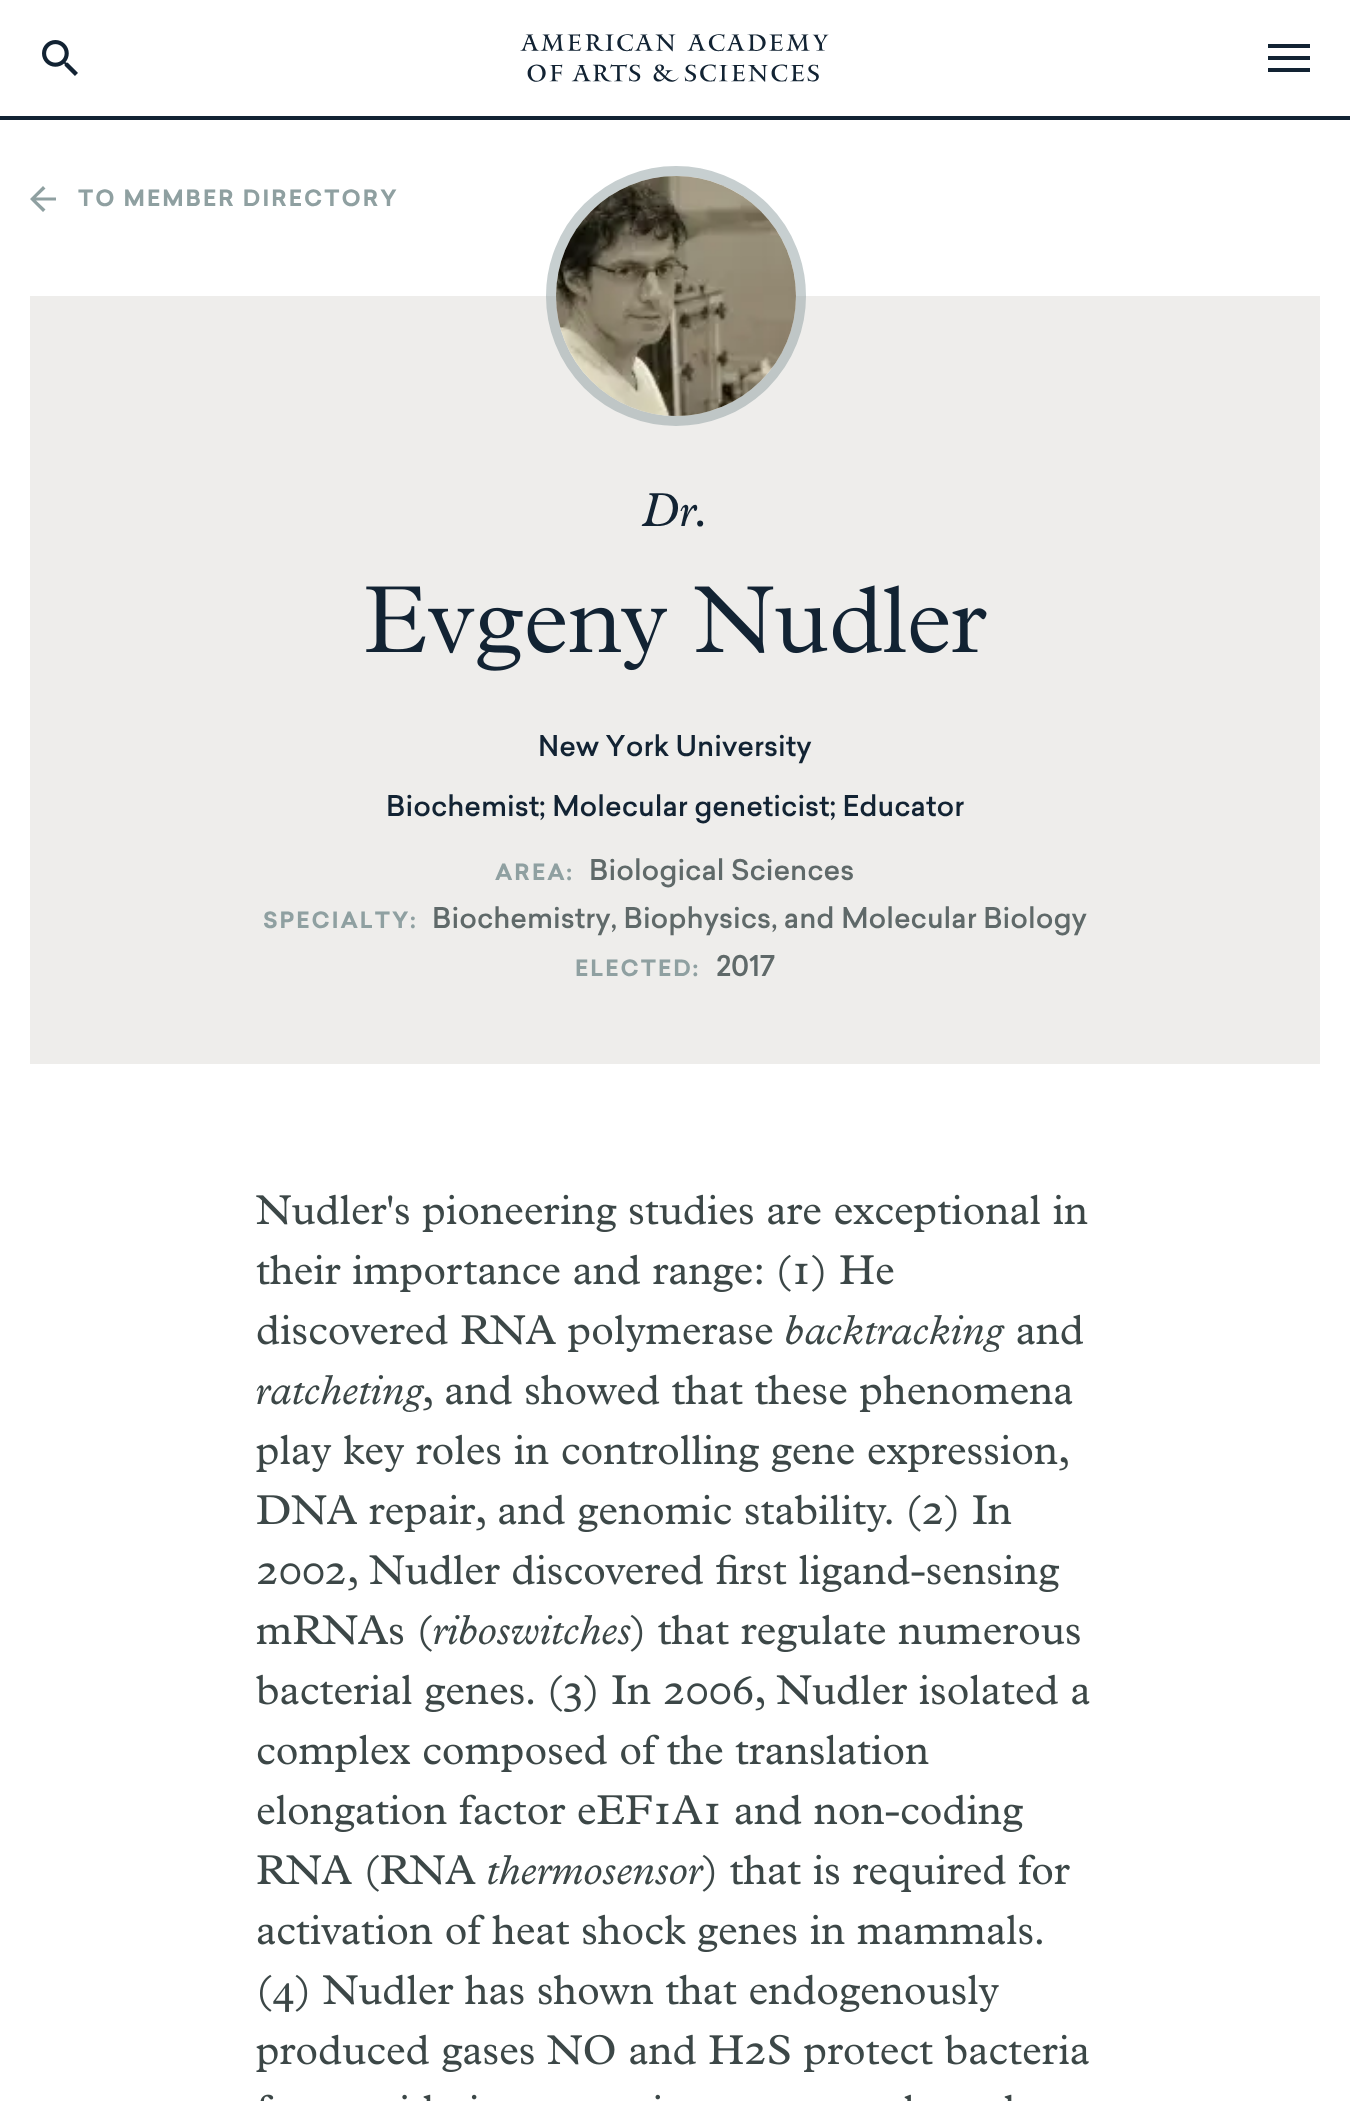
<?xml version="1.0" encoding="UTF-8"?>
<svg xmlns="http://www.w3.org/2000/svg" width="1350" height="2101">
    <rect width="100%" height="100%" fill="#FFFFFF"/>
    <rect x="0" y="116" width="1350" height="4" fill="#122333"/>
    <image x="42" y="40" width="36" height="36" href="img_01.png"/>
    <image x="520" y="34" width="309" height="48" href="img_02.png"/>
    <path d="M 1268 72 H 1310 V 68 H 1268 Z M 1268 60 H 1310 V 56 H 1268 Z M 1268 48 H 1310 V 44 H 1268 Z" fill="#122333" fill-rule="evenodd"/>
    <path d="M 56 197.5 H 36 L 45.5 188.5 L 43 186 L 30 199 L 43 212 L 45.5 209.5 L 36 200.5 H 56 Z" fill="#8FA0A1" fill-rule="evenodd"/>
    <text x="78" y="206" font-family="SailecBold" font-size="22" letter-spacing="2" fill="#8FA0A1">TO MEMBER DIRECTORY</text>
    <rect x="30" y="296" width="1290" height="768" fill="#EEEDEB"/>
    <circle cx="676" cy="296" r="125" fill="none" stroke="#8FA0A1" stroke-opacity="0.5" stroke-width="10"/>
    <image x="556" y="176" width="240" height="240" href="img_03.png"/>
    <text x="641" y="526" font-family="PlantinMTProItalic" font-size="48" fill="#122333">Dr.</text>
    <image x="366" y="585" width="621" height="86" href="img_04.png"/>
    <text x="538" y="756" font-family="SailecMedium" font-size="28" fill="#122333">New York University</text>
    <text x="386" y="816" font-family="SailecMedium" font-size="28" fill="#122333">Biochemist; Molecular geneticist; Educator</text>
    <text x="495" y="880" font-family="SailecBold" font-size="22" letter-spacing="2" fill="#8FA0A1">AREA:</text>
    <text x="589" y="880" font-family="SailecMedium" font-size="28" fill="#5F6969">Biological Sciences</text>
    <text x="263" y="928" font-family="SailecBold" font-size="22" letter-spacing="2" fill="#8FA0A1">SPECIALTY:</text>
    <text x="432" y="928" font-family="SailecMedium" font-size="28" fill="#5F6969">Biochemistry, Biophysics, and Molecular Biology</text>
    <text x="575" y="976" font-family="SailecBold" font-size="22" letter-spacing="2" fill="#8FA0A1">ELECTED:</text>
    <text x="716" y="976" font-family="SailecMedium" font-size="28" fill="#5F6969">2017</text>
    <image x="256" y="1194" width="832" height="38" href="img_05.png"/>
    <image x="256" y="1254" width="638" height="38" href="img_06.png"/>
    <image x="257" y="1314" width="516" height="38" href="img_07.png"/>
    <text x="784" y="1344" font-family="PlantinMTProItalic" font-size="42" fill="#3C4747">backtracking</text>
    <image x="1017" y="1314" width="66" height="31" href="img_08.png"/>
    <text x="255" y="1404" font-family="PlantinMTProItalic" font-size="42" fill="#3C4747">ratcheting</text>
    <image x="423" y="1374" width="650" height="38" href="img_09.png"/>
    <image x="256" y="1434" width="812" height="38" href="img_10.png"/>
    <image x="257" y="1494" width="755" height="38" href="img_11.png"/>
    <image x="258" y="1554" width="802" height="38" href="img_12.png"/>
    <image x="256" y="1614" width="176" height="38" href="img_13.png"/>
    <text x="432" y="1644" font-family="PlantinMTProItalic" font-size="42" fill="#3C4747">riboswitches</text>
    <image x="630" y="1614" width="450" height="38" href="img_14.png"/>
    <image x="256" y="1674" width="834" height="38" href="img_15.png"/>
    <image x="257" y="1734" width="672" height="38" href="img_16.png"/>
    <image x="257" y="1794" width="766" height="38" href="img_17.png"/>
    <image x="257" y="1854" width="219" height="38" href="img_18.png"/>
    <text x="486" y="1884" font-family="PlantinMTProItalic" font-size="42" fill="#3C4747">thermosensor</text>
    <image x="702" y="1854" width="368" height="38" href="img_19.png"/>
    <image x="257" y="1914" width="785" height="38" href="img_20.png"/>
    <image x="260" y="1974" width="739" height="38" href="img_21.png"/>
    <image x="256" y="2034" width="833" height="38" href="img_22.png"/>
    <image x="260" y="2094" width="752" height="7" href="img_23.png"/>
</svg>
